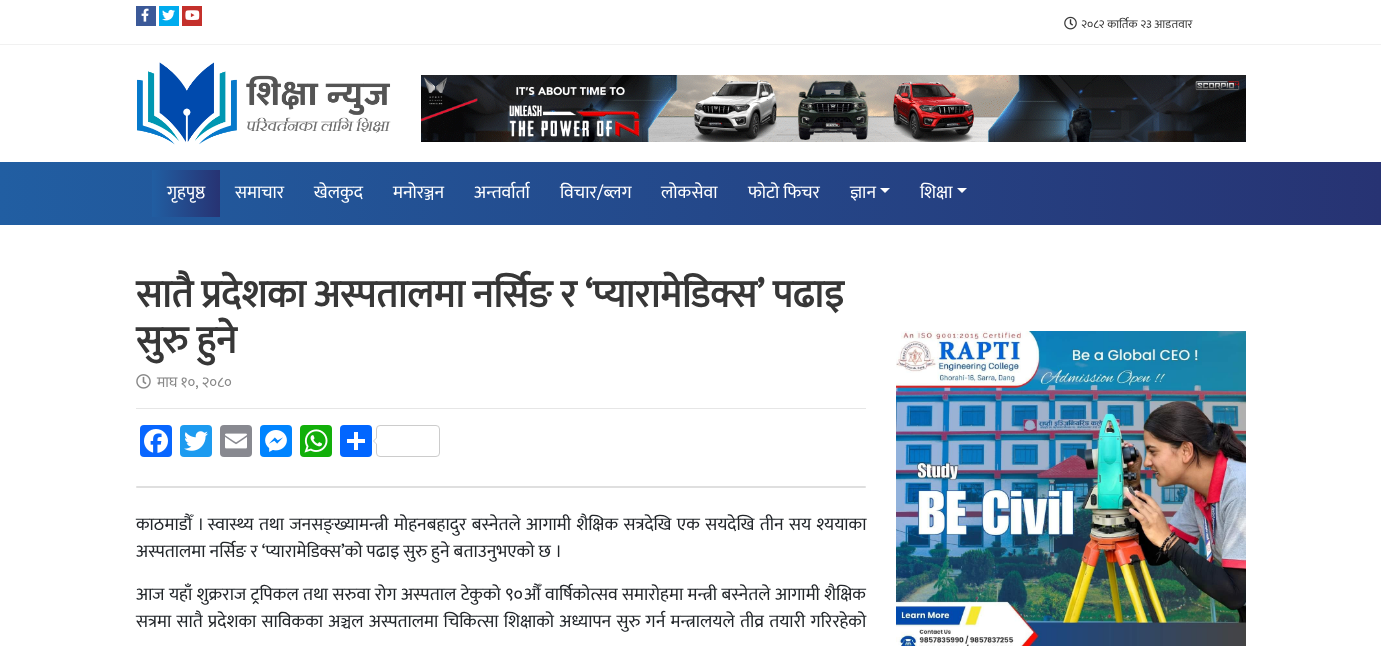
<?xml version="1.0" encoding="UTF-8"?>
<svg xmlns="http://www.w3.org/2000/svg" width="1381" height="646">
    <defs>
        <linearGradient id="g1" gradientUnits="userSpaceOnUse" x1="0" y1="194" x2="1381" y2="193"><stop offset="0" stop-color="#215EA2"/><stop offset="1" stop-color="#273373"/></linearGradient>
        <linearGradient id="g2" gradientUnits="userSpaceOnUse" x1="152" y1="194" x2="220" y2="194"><stop offset="0" stop-color="#215EA2"/><stop offset="1" stop-color="#273373"/></linearGradient>
    </defs>
    <rect width="100%" height="100%" fill="#FFFFFF"/>
    <rect x="0" y="44" width="1381" height="1" fill="#F1F1F1"/>
    <rect x="136" y="6" width="20" height="20" fill="#3B5998"/>
    <image x="141" y="8" width="8" height="14" href="img_01.png"/>
    <rect x="159" y="6" width="20" height="20" fill="#00ACEE"/>
    <image x="162" y="9" width="13" height="12" href="img_02.png"/>
    <rect x="182" y="6" width="20" height="20" fill="#C4302B"/>
    <image x="185" y="10" width="15" height="10" href="img_03.png"/>
    <image x="1064" y="16" width="13" height="14" href="img_04.png"/>
    <image x="1081" y="17" width="112" height="11" href="img_05.png"/>
    <image x="137" y="62" width="254" height="83" href="img_06.png"/>
    <image x="421" y="75" width="825" height="67" href="img_07.png"/>
    <rect x="0" y="162" width="1381" height="63" fill="url(#g1)"/>
    <rect x="152" y="170" width="68" height="47" fill="url(#g2)"/>
    <text x="167" y="198" font-family="Mukta" font-size="18" fill="#FFFFFF">गृहपृष्ठ</text>
    <text x="235" y="198" font-family="Mukta" font-size="18" fill="#FFFFFF">समाचार</text>
    <text x="314" y="198" font-family="Mukta" font-size="18" fill="#FFFFFF">खेलकुद</text>
    <text x="393" y="198" font-family="Mukta" font-size="18" fill="#FFFFFF">मनोरञ्जन</text>
    <text x="474" y="198" font-family="Mukta" font-size="18" fill="#FFFFFF">अन्तर्वार्ता</text>
    <text x="560" y="198" font-family="Mukta" font-size="18" fill="#FFFFFF">विचार/ब्लग</text>
    <text x="661" y="198" font-family="Mukta" font-size="18" fill="#FFFFFF">लाेकसेवा</text>
    <text x="748" y="198" font-family="Mukta" font-size="18" fill="#FFFFFF">फोटो फिचर</text>
    <text x="850" y="198" font-family="Mukta" font-size="18" fill="#FFFFFF">ज्ञान</text>
    <path d="M 880 188 H 890 L 885 193 Z" fill="#FFFFFF"/>
    <text x="920" y="198" font-family="Mukta" font-size="18" fill="#FFFFFF">शिक्षा</text>
    <path d="M 957 188 H 967 L 962 193 Z" fill="#FFFFFF"/>
    <text font-family="Mukta" font-size="39" font-weight="700" fill="#373737">
        <tspan x="136" y="307" word-spacing="-0.5">सातै प्रदेशका अस्पतालमा नर्सिङ र ‘प्यारामेडिक्स’ पढाइ</tspan>
        <tspan x="136" y="353">सुरु हुने</tspan>
    </text>
    <image x="136" y="374" width="15" height="15" href="img_08.png"/>
    <text x="157" y="387" font-family="Mukta" font-size="15" fill="#888888">माघ १०, २०८०</text>
    <rect x="136" y="408" width="730" height="1" fill="#E6E6E6"/>
    <rect x="140" y="425" width="32" height="32" rx="4" fill="#0866FF"/>
    <image x="144" y="429" width="24" height="24" href="img_09.png"/>
    <rect x="180" y="425" width="32" height="32" rx="4" fill="#1D9BF0"/>
    <image x="184" y="431" width="24" height="20" href="img_10.png"/>
    <rect x="220" y="425" width="32" height="32" rx="4" fill="#888990"/>
    <image x="225" y="433" width="22" height="16" href="img_11.png"/>
    <rect x="260" y="425" width="32" height="32" rx="4" fill="#0084FF"/>
    <image x="265" y="430" width="22" height="22" href="img_12.png"/>
    <rect x="300" y="425" width="32" height="32" rx="4" fill="#12AF0A"/>
    <image x="304" y="429" width="24" height="24" href="img_13.png"/>
    <rect x="340" y="425" width="32" height="32" rx="4" fill="#0166FF"/>
    <rect x="354" y="432" width="4" height="18" fill="#FFFFFF"/>
    <rect x="347" y="439" width="18" height="4" fill="#FFFFFF"/>
    <rect x="376.5" y="425.5" width="63" height="31" rx="3.5" fill="none" stroke="#CCCCCC"/>
    <path d="M 377 437 V 445 L 373 441 Z" fill="#CCCCCC"/>
    <path d="M 378 437 V 445 L 374 441 Z" fill="#FFFFFF"/>
    <rect x="136" y="486" width="730" height="2" rx="1" fill="#DFDFDF"/>
    <text font-family="Mukta" font-size="18" fill="#212529">
        <tspan x="136" y="530" word-spacing="1.4">काठमाडौँ । स्वास्थ्य तथा जनसङ्ख्यामन्त्री मोहनबहादुर बस्नेतले आगामी शैक्षिक सत्रदेखि एक सयदेखि तीन सय श्ययाका</tspan>
        <tspan x="136" y="557">अस्पतालमा नर्सिङ र ‘प्यारामेडिक्स’को पढाइ सुरु हुने बताउनुभएको छ ।</tspan>
    </text>
    <text font-family="Mukta" font-size="18" fill="#212529">
        <tspan x="136" y="600" word-spacing="0.4">आज यहाँ शुक्रराज ट्रपिकल तथा सरुवा रोग अस्पताल टेकुको ९०औँ वार्षिकोत्सव समारोहमा मन्त्री बस्नेतले आगामी शैक्षिक</tspan>
        <tspan x="136" y="627" word-spacing="1.25">सत्रमा सातै प्रदेशका साविकका अञ्चल अस्पतालमा चिकित्सा शिक्षाको अध्यापन सुरु गर्न मन्त्रालयले तीव्र तयारी गरिरहेको</tspan>
    </text>
    <image x="896" y="331" width="350" height="315" href="img_14.png"/>
</svg>
